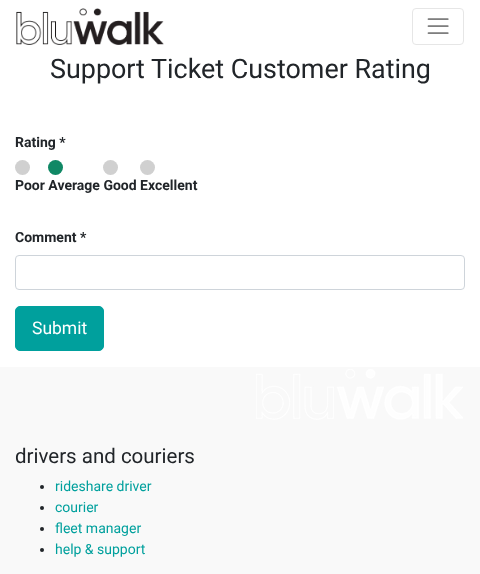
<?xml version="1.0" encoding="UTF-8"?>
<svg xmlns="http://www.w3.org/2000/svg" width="480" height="574">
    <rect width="100%" height="100%" fill="#FFFFFF"/>
    <image x="16" y="8" width="148" height="37" href="img_01.png"/>
    <rect x="412.5" y="8.5" width="51" height="36" rx="3.5" fill="none" stroke="#E6E6E6"/>
    <image x="427" y="18" width="22" height="16" href="img_02.png"/>
    <text x="50" y="78" font-family="Roboto" font-size="26.9" fill="#212529">Support Ticket Customer Rating</text>
    <text x="15" y="147" font-family="Roboto" font-size="14" font-weight="700" fill="#212529">Rating *</text>
    <circle cx="55.5" cy="167.5" r="7.5" fill="#108865"/>
    <circle cx="110.5" cy="167.5" r="7.5" fill="#D0D0D0"/>
    <circle cx="147.5" cy="167.5" r="7.5" fill="#D0D0D0"/>
    <circle cx="22.5" cy="167.5" r="7.5" fill="#D0D0D0"/>
    <text x="15" y="190" font-family="Roboto" font-size="14" font-weight="700" fill="#212529">Poor Average Good Excellent</text>
    <text x="15" y="242" font-family="Roboto" font-size="14" font-weight="700" fill="#212529">Comment *</text>
    <rect x="15.5" y="255.5" width="449" height="34" rx="3.5" fill="none" stroke="#CED4DA"/>
    <rect x="15.5" y="306.5" width="88" height="44" rx="4.5" fill="#00A09D" stroke="#00A09D"/>
    <text x="32" y="334" font-family="Roboto" font-size="17.5" fill="#FFFFFF">Submit</text>
    <rect x="0" y="367" width="480" height="207" fill="#F9F9F9"/>
    <image x="256" y="369" width="207" height="51" href="img_03.png"/>
    <text x="15" y="463" font-family="Roboto" font-size="20.5" fill="#212529">drivers and couriers</text>
    <circle cx="42" cy="487" r="2" fill="#212529"/>
    <text x="55" y="491" font-family="Roboto" font-size="14" fill="#00A09D">rideshare driver</text>
    <circle cx="42" cy="508" r="2" fill="#212529"/>
    <text x="55" y="512" font-family="Roboto" font-size="14" fill="#00A09D">courier</text>
    <circle cx="42" cy="529" r="2" fill="#212529"/>
    <text x="55" y="533" font-family="Roboto" font-size="14" fill="#00A09D">fleet manager</text>
    <circle cx="42" cy="550" r="2" fill="#212529"/>
    <text x="55" y="554" font-family="Roboto" font-size="14" fill="#00A09D">help &amp; support</text>
</svg>
